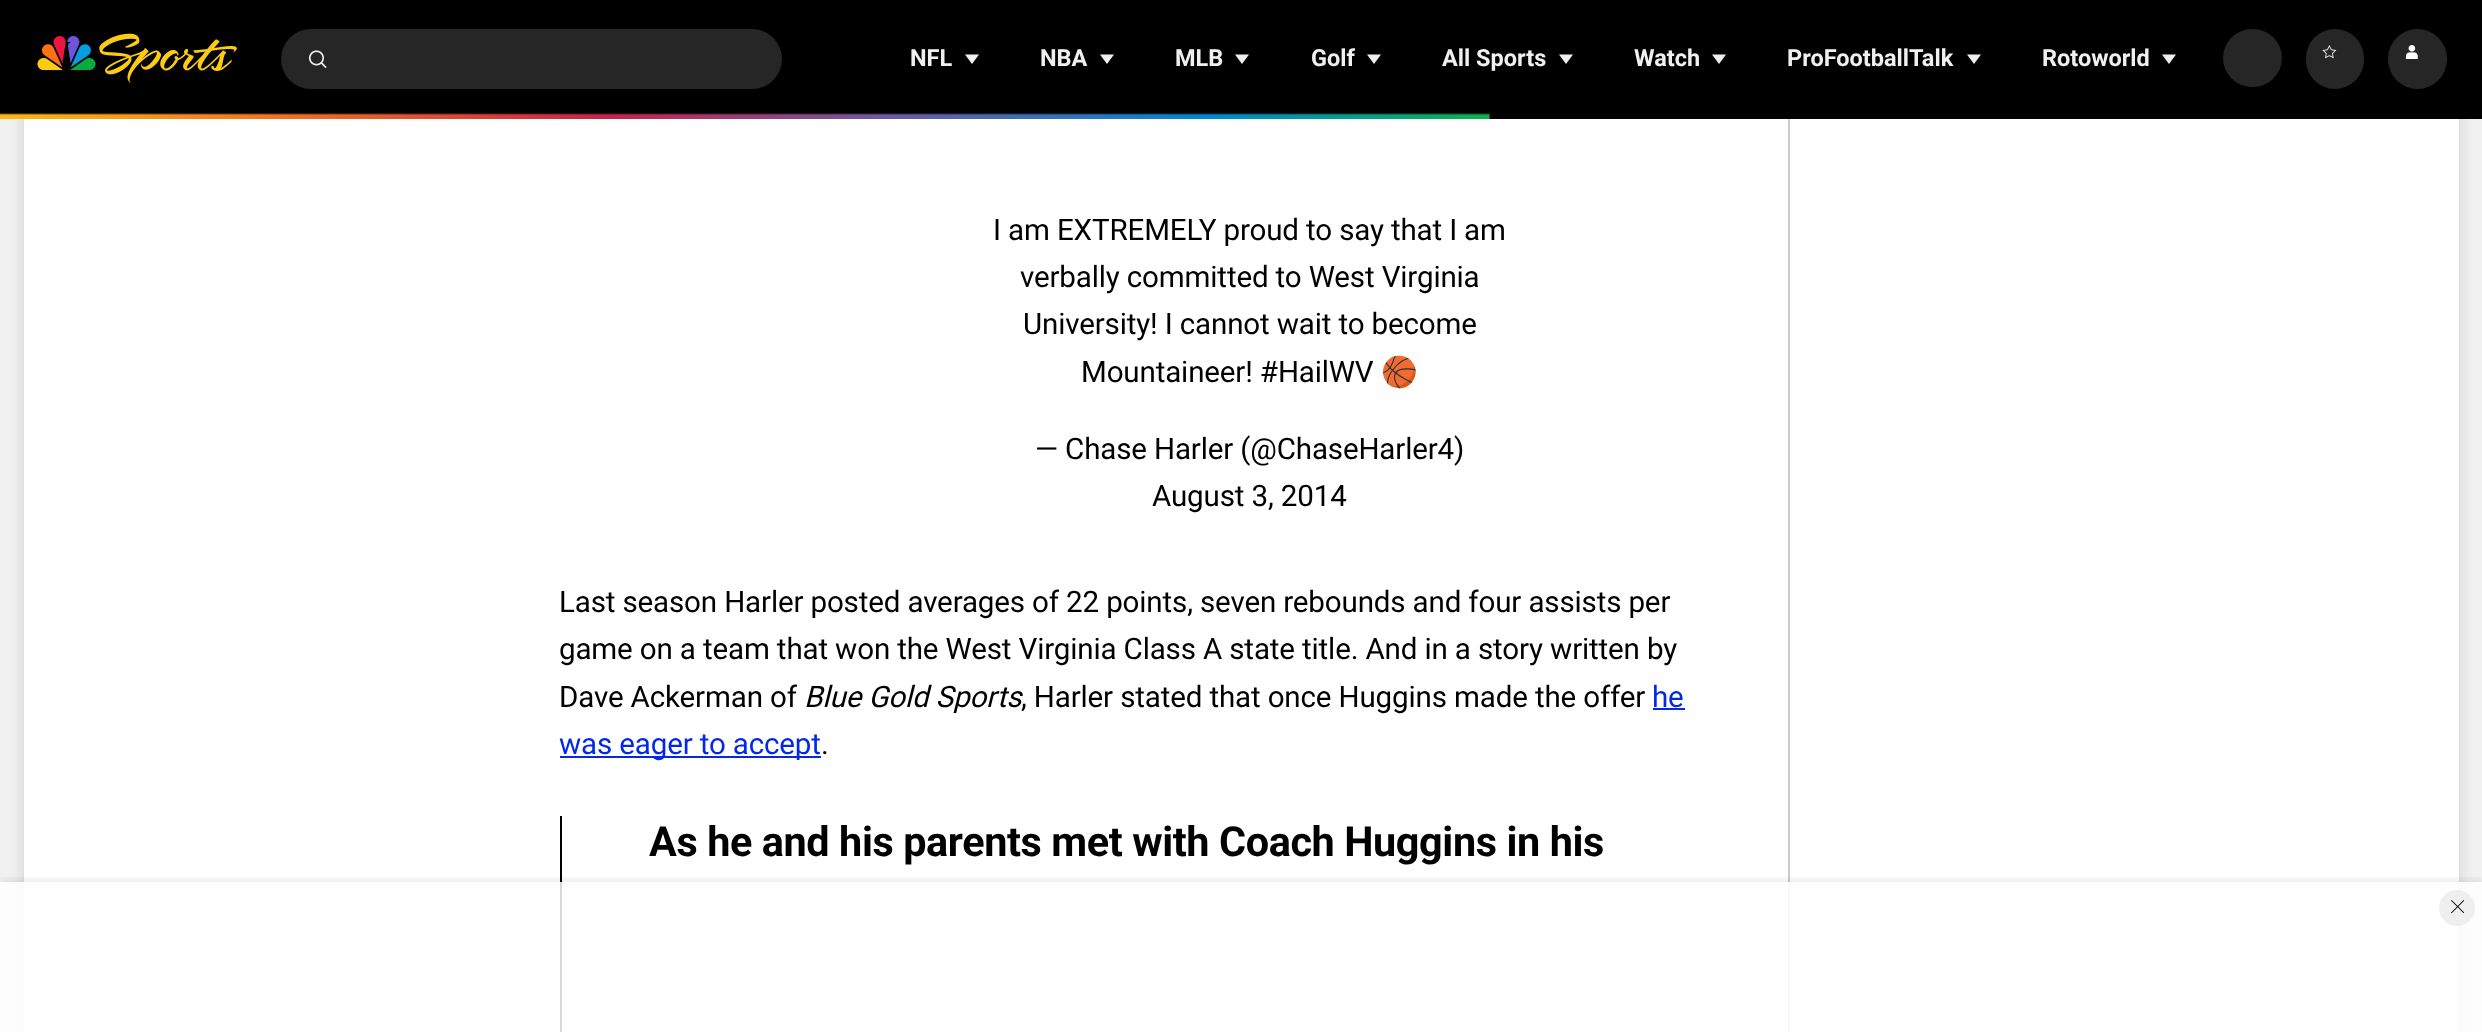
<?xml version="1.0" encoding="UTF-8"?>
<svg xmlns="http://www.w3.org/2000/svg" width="2482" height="1032">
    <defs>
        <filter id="blur1" x="-50%" y="-200%" width="200%" height="500%"><feGaussianBlur stdDeviation="7.5"/></filter>
        <clipPath id="clip1"><rect x="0" y="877" width="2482" height="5"/></clipPath>
        <filter id="blur2" x="-50%" y="-200%" width="200%" height="500%"><feGaussianBlur stdDeviation="3"/></filter>
    </defs>
    <rect width="100%" height="100%" fill="#F1F1F1"/>
    <rect x="24" y="-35" width="2435" height="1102" rx="12" fill="#000000" fill-opacity="0.15" filter="url(#blur1)"/>
    <rect x="0" y="0" width="2482" height="119" fill="#000000"/>
    <image x="37" y="33" width="200" height="50" href="img_01.png"/>
    <rect x="281" y="29" width="501" height="60" rx="30" fill="#262626"/>
    <image x="308" y="50" width="19" height="18" href="img_02.png"/>
    <text x="910" y="66" font-family="Roboto" font-size="23.5" font-weight="700" fill="#F0F0F0">NFL</text>
    <path d="M 972 64 L 965 54.5 H 979 Z" fill="#F0F0F0"/>
    <text x="1040" y="66" font-family="Roboto" font-size="23.5" font-weight="700" fill="#F0F0F0">NBA</text>
    <path d="M 1107 64 L 1100 54.5 H 1114 Z" fill="#F0F0F0"/>
    <text x="1175" y="66" font-family="Roboto" font-size="23.5" font-weight="700" fill="#F0F0F0">MLB</text>
    <path d="M 1242 64 L 1235 54.5 H 1249 Z" fill="#F0F0F0"/>
    <text x="1311" y="66" font-family="Roboto" font-size="23.5" font-weight="700" fill="#F0F0F0">Golf</text>
    <path d="M 1374 64 L 1367 54.5 H 1381 Z" fill="#F0F0F0"/>
    <text x="1442" y="66" font-family="Roboto" font-size="23.5" font-weight="700" fill="#F0F0F0">All Sports</text>
    <path d="M 1566 64 L 1559 54.5 H 1573 Z" fill="#F0F0F0"/>
    <text x="1634" y="66" font-family="Roboto" font-size="23.5" font-weight="700" fill="#F0F0F0">Watch</text>
    <path d="M 1719 64 L 1712 54.5 H 1726 Z" fill="#F0F0F0"/>
    <text x="1787" y="66" font-family="Roboto" font-size="23.5" font-weight="700" fill="#F0F0F0">ProFootballTalk</text>
    <path d="M 1974 64 L 1967 54.5 H 1981 Z" fill="#F0F0F0"/>
    <text x="2042" y="66" font-family="Roboto" font-size="23.5" font-weight="700" fill="#F0F0F0">Rotoworld</text>
    <path d="M 2169 64 L 2162 54.5 H 2176 Z" fill="#F0F0F0"/>
    <rect x="2223" y="29" width="59" height="58" rx="29" fill="#262626"/>
    <rect x="2306" y="29" width="58" height="60" rx="29" fill="#262626"/>
    <image x="2322" y="45" width="15" height="14" href="img_03.png"/>
    <rect x="2388" y="29" width="59" height="60" rx="29.5" fill="#262626"/>
    <image x="2405" y="45" width="13" height="14" href="img_04.png"/>
    <image x="0" y="113" width="1490" height="6" href="img_05.png"/>
    <rect x="24" y="119" width="2435" height="913" fill="#FFFFFF"/>
    <text x="993" y="240" font-family="Roboto" font-size="29.55" letter-spacing="-0.15" fill="#000000">I am EXTREMELY proud to say that I</text>
    <text x="1464" y="240" font-family="Roboto" font-size="29.55" letter-spacing="-0.15" fill="#000000">am</text>
    <text x="1020" y="287" font-family="Roboto" font-size="29.55" letter-spacing="-0.15" fill="#000000">verbally committed to West Virginia</text>
    <text x="1023" y="334" font-family="Roboto" font-size="29.55" letter-spacing="-0.15" fill="#000000">University! I cannot wait to become</text>
    <text x="1081" y="382" font-family="Roboto" font-size="29.55" letter-spacing="-0.15" fill="#000000">Mountaineer! #HailWV</text>
    <text x="1381" y="382" font-family="Noto Color Emoji" font-size="29.55" letter-spacing="-0.15" fill="#000000">🏀</text>
    <text x="1035" y="459" font-family="Roboto" font-size="29.55" letter-spacing="-0.15" fill="#000000">— Chase Harler (@ChaseHarler4)</text>
    <text x="1152" y="506" font-family="Roboto" font-size="29.55" letter-spacing="-0.15" fill="#000000">August 3, 2014</text>
    <text font-family="Roboto" font-size="29.55" letter-spacing="-0.15" fill="#000000">
        <tspan x="559" y="612">Last season Harler posted averages of 22 points, seven rebounds and four assists per</tspan>
        <tspan x="559" y="659">game on a team that won the West Virginia Class A state title. And in a story written by</tspan>
        <tspan x="559" y="707">Dave Ackerman of</tspan>
    </text>
    <text x="804" y="707" font-family="Roboto" font-size="29.55" font-style="italic" letter-spacing="-0.15" fill="#000000">Blue Gold Sports</text>
    <text x="1021" y="707" font-family="Roboto" font-size="29.55" letter-spacing="-0.15" fill="#000000">, Harler stated that once Huggins made the offer</text>
    <text x="1652" y="707" font-family="Roboto" font-size="29.55" letter-spacing="-0.15" fill="#0329E7">he</text>
    <rect x="1653" y="708" width="32" height="2" fill="#0329E7"/>
    <rect x="560" y="756" width="261" height="2" fill="#0329E7"/>
    <text x="559" y="754" font-family="Roboto" font-size="29.55" letter-spacing="-0.15" fill="#0329E7">was eager to accept</text>
    <text x="821" y="754" font-family="Roboto" font-size="29.55" letter-spacing="-0.15" fill="#000000">.</text>
    <rect x="560" y="816" width="2" height="216" fill="#000000"/>
    <text x="649" y="856" font-family="Roboto" font-size="41.4" font-weight="700" letter-spacing="-0.4" fill="#000000">As he and his parents met with Coach Huggins in his</text>
    <rect x="1788" y="119" width="2" height="913" fill="#CCCCCC"/>
    <g clip-path="url(#clip1)">
        <rect x="0" y="879" width="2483" height="150" fill="#000000" fill-opacity="0.08" filter="url(#blur2)"/>
    </g>
    <rect x="0" y="882" width="2482" height="150" fill="#FFFFFF" fill-opacity="0.85"/>
    <circle cx="2457" cy="908" r="18" fill="#EFEFEF"/>
    <image x="2451" y="900" width="13" height="13" href="img_06.png"/>
</svg>
